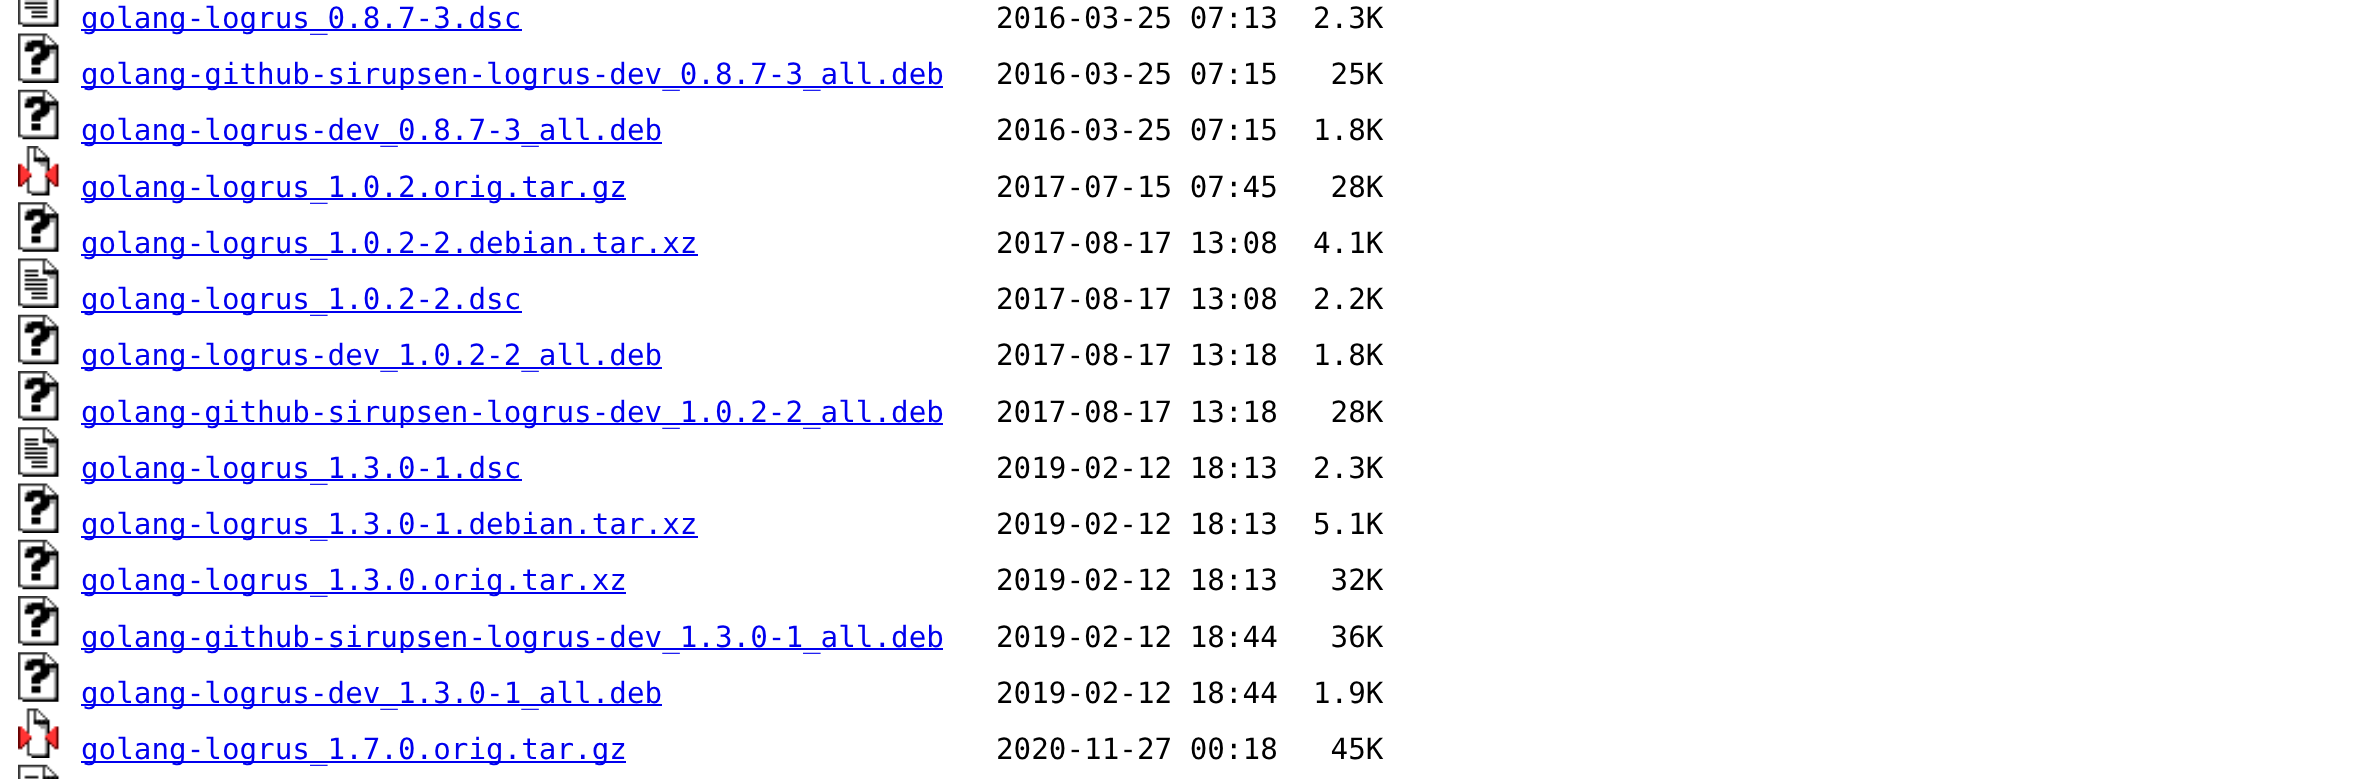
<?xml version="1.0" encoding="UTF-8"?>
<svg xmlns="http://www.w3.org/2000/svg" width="2361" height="779">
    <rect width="100%" height="100%" fill="#FFFFFF"/>
    <image x="18" y="0" width="42" height="27" href="img_01.png"/>
    <rect x="81" y="29" width="441" height="2" fill="#0000EE"/>
    <text x="81" y="28" font-family="DejaVu Sans Mono" font-size="29.25" fill="#0000EE">golang-logrus_0.8.7-3.dsc</text>
    <text x="996" y="28" font-family="DejaVu Sans Mono" font-size="29.25" fill="#000000" xml:space="preserve">2016-03-25 07:13  2.3K</text>
    <image x="18" y="33" width="42" height="50" href="img_02.png"/>
    <rect x="81" y="86" width="862" height="2" fill="#0000EE"/>
    <text x="81" y="84" font-family="DejaVu Sans Mono" font-size="29.25" fill="#0000EE">golang-github-sirupsen-logrus-dev_0.8.7-3_all.deb</text>
    <text x="996" y="84" font-family="DejaVu Sans Mono" font-size="29.25" fill="#000000" xml:space="preserve">2016-03-25 07:15   25K</text>
    <image x="18" y="89" width="42" height="51" href="img_03.png"/>
    <rect x="81" y="142" width="581" height="2" fill="#0000EE"/>
    <text x="81" y="140" font-family="DejaVu Sans Mono" font-size="29.25" fill="#0000EE">golang-logrus-dev_0.8.7-3_all.deb</text>
    <text x="996" y="140" font-family="DejaVu Sans Mono" font-size="29.25" fill="#000000" xml:space="preserve">2016-03-25 07:15  1.8K</text>
    <image x="18" y="146" width="42" height="50" href="img_04.png"/>
    <rect x="81" y="198" width="545" height="2" fill="#0000EE"/>
    <text x="81" y="197" font-family="DejaVu Sans Mono" font-size="29.25" fill="#0000EE">golang-logrus_1.0.2.orig.tar.gz</text>
    <text x="996" y="197" font-family="DejaVu Sans Mono" font-size="29.25" fill="#000000" xml:space="preserve">2017-07-15 07:45   28K</text>
    <image x="18" y="202" width="42" height="50" href="img_05.png"/>
    <rect x="81" y="254" width="617" height="2" fill="#0000EE"/>
    <text x="81" y="253" font-family="DejaVu Sans Mono" font-size="29.25" fill="#0000EE">golang-logrus_1.0.2-2.debian.tar.xz</text>
    <text x="996" y="253" font-family="DejaVu Sans Mono" font-size="29.25" fill="#000000" xml:space="preserve">2017-08-17 13:08  4.1K</text>
    <image x="18" y="258" width="42" height="50" href="img_06.png"/>
    <rect x="81" y="311" width="441" height="2" fill="#0000EE"/>
    <text x="81" y="309" font-family="DejaVu Sans Mono" font-size="29.25" fill="#0000EE">golang-logrus_1.0.2-2.dsc</text>
    <text x="996" y="309" font-family="DejaVu Sans Mono" font-size="29.25" fill="#000000" xml:space="preserve">2017-08-17 13:08  2.2K</text>
    <image x="18" y="314" width="42" height="51" href="img_03.png"/>
    <rect x="81" y="367" width="581" height="2" fill="#0000EE"/>
    <text x="81" y="365" font-family="DejaVu Sans Mono" font-size="29.25" fill="#0000EE">golang-logrus-dev_1.0.2-2_all.deb</text>
    <text x="996" y="365" font-family="DejaVu Sans Mono" font-size="29.25" fill="#000000" xml:space="preserve">2017-08-17 13:18  1.8K</text>
    <image x="18" y="371" width="42" height="50" href="img_07.png"/>
    <rect x="81" y="423" width="862" height="2" fill="#0000EE"/>
    <text x="81" y="422" font-family="DejaVu Sans Mono" font-size="29.25" fill="#0000EE">golang-github-sirupsen-logrus-dev_1.0.2-2_all.deb</text>
    <text x="996" y="422" font-family="DejaVu Sans Mono" font-size="29.25" fill="#000000" xml:space="preserve">2017-08-17 13:18   28K</text>
    <image x="18" y="427" width="42" height="50" href="img_08.png"/>
    <rect x="81" y="479" width="441" height="2" fill="#0000EE"/>
    <text x="81" y="478" font-family="DejaVu Sans Mono" font-size="29.25" fill="#0000EE">golang-logrus_1.3.0-1.dsc</text>
    <text x="996" y="478" font-family="DejaVu Sans Mono" font-size="29.25" fill="#000000" xml:space="preserve">2019-02-12 18:13  2.3K</text>
    <image x="18" y="483" width="42" height="50" href="img_09.png"/>
    <rect x="81" y="536" width="617" height="2" fill="#0000EE"/>
    <text x="81" y="534" font-family="DejaVu Sans Mono" font-size="29.25" fill="#0000EE">golang-logrus_1.3.0-1.debian.tar.xz</text>
    <text x="996" y="534" font-family="DejaVu Sans Mono" font-size="29.25" fill="#000000" xml:space="preserve">2019-02-12 18:13  5.1K</text>
    <image x="18" y="539" width="42" height="51" href="img_03.png"/>
    <rect x="81" y="592" width="545" height="2" fill="#0000EE"/>
    <text x="81" y="590" font-family="DejaVu Sans Mono" font-size="29.25" fill="#0000EE">golang-logrus_1.3.0.orig.tar.xz</text>
    <text x="996" y="590" font-family="DejaVu Sans Mono" font-size="29.25" fill="#000000" xml:space="preserve">2019-02-12 18:13   32K</text>
    <image x="18" y="596" width="42" height="50" href="img_07.png"/>
    <rect x="81" y="648" width="862" height="2" fill="#0000EE"/>
    <text x="81" y="647" font-family="DejaVu Sans Mono" font-size="29.25" fill="#0000EE">golang-github-sirupsen-logrus-dev_1.3.0-1_all.deb</text>
    <text x="996" y="647" font-family="DejaVu Sans Mono" font-size="29.25" fill="#000000" xml:space="preserve">2019-02-12 18:44   36K</text>
    <image x="18" y="652" width="42" height="50" href="img_05.png"/>
    <rect x="81" y="704" width="581" height="2" fill="#0000EE"/>
    <text x="81" y="703" font-family="DejaVu Sans Mono" font-size="29.25" fill="#0000EE">golang-logrus-dev_1.3.0-1_all.deb</text>
    <text x="996" y="703" font-family="DejaVu Sans Mono" font-size="29.25" fill="#000000" xml:space="preserve">2019-02-12 18:44  1.9K</text>
    <image x="18" y="708" width="42" height="50" href="img_10.png"/>
    <rect x="81" y="761" width="545" height="2" fill="#0000EE"/>
    <text x="81" y="759" font-family="DejaVu Sans Mono" font-size="29.25" fill="#0000EE">golang-logrus_1.7.0.orig.tar.gz</text>
    <text x="996" y="759" font-family="DejaVu Sans Mono" font-size="29.25" fill="#000000" xml:space="preserve">2020-11-27 00:18   45K</text>
    <image x="18" y="764" width="42" height="15" href="img_11.png"/>
</svg>
